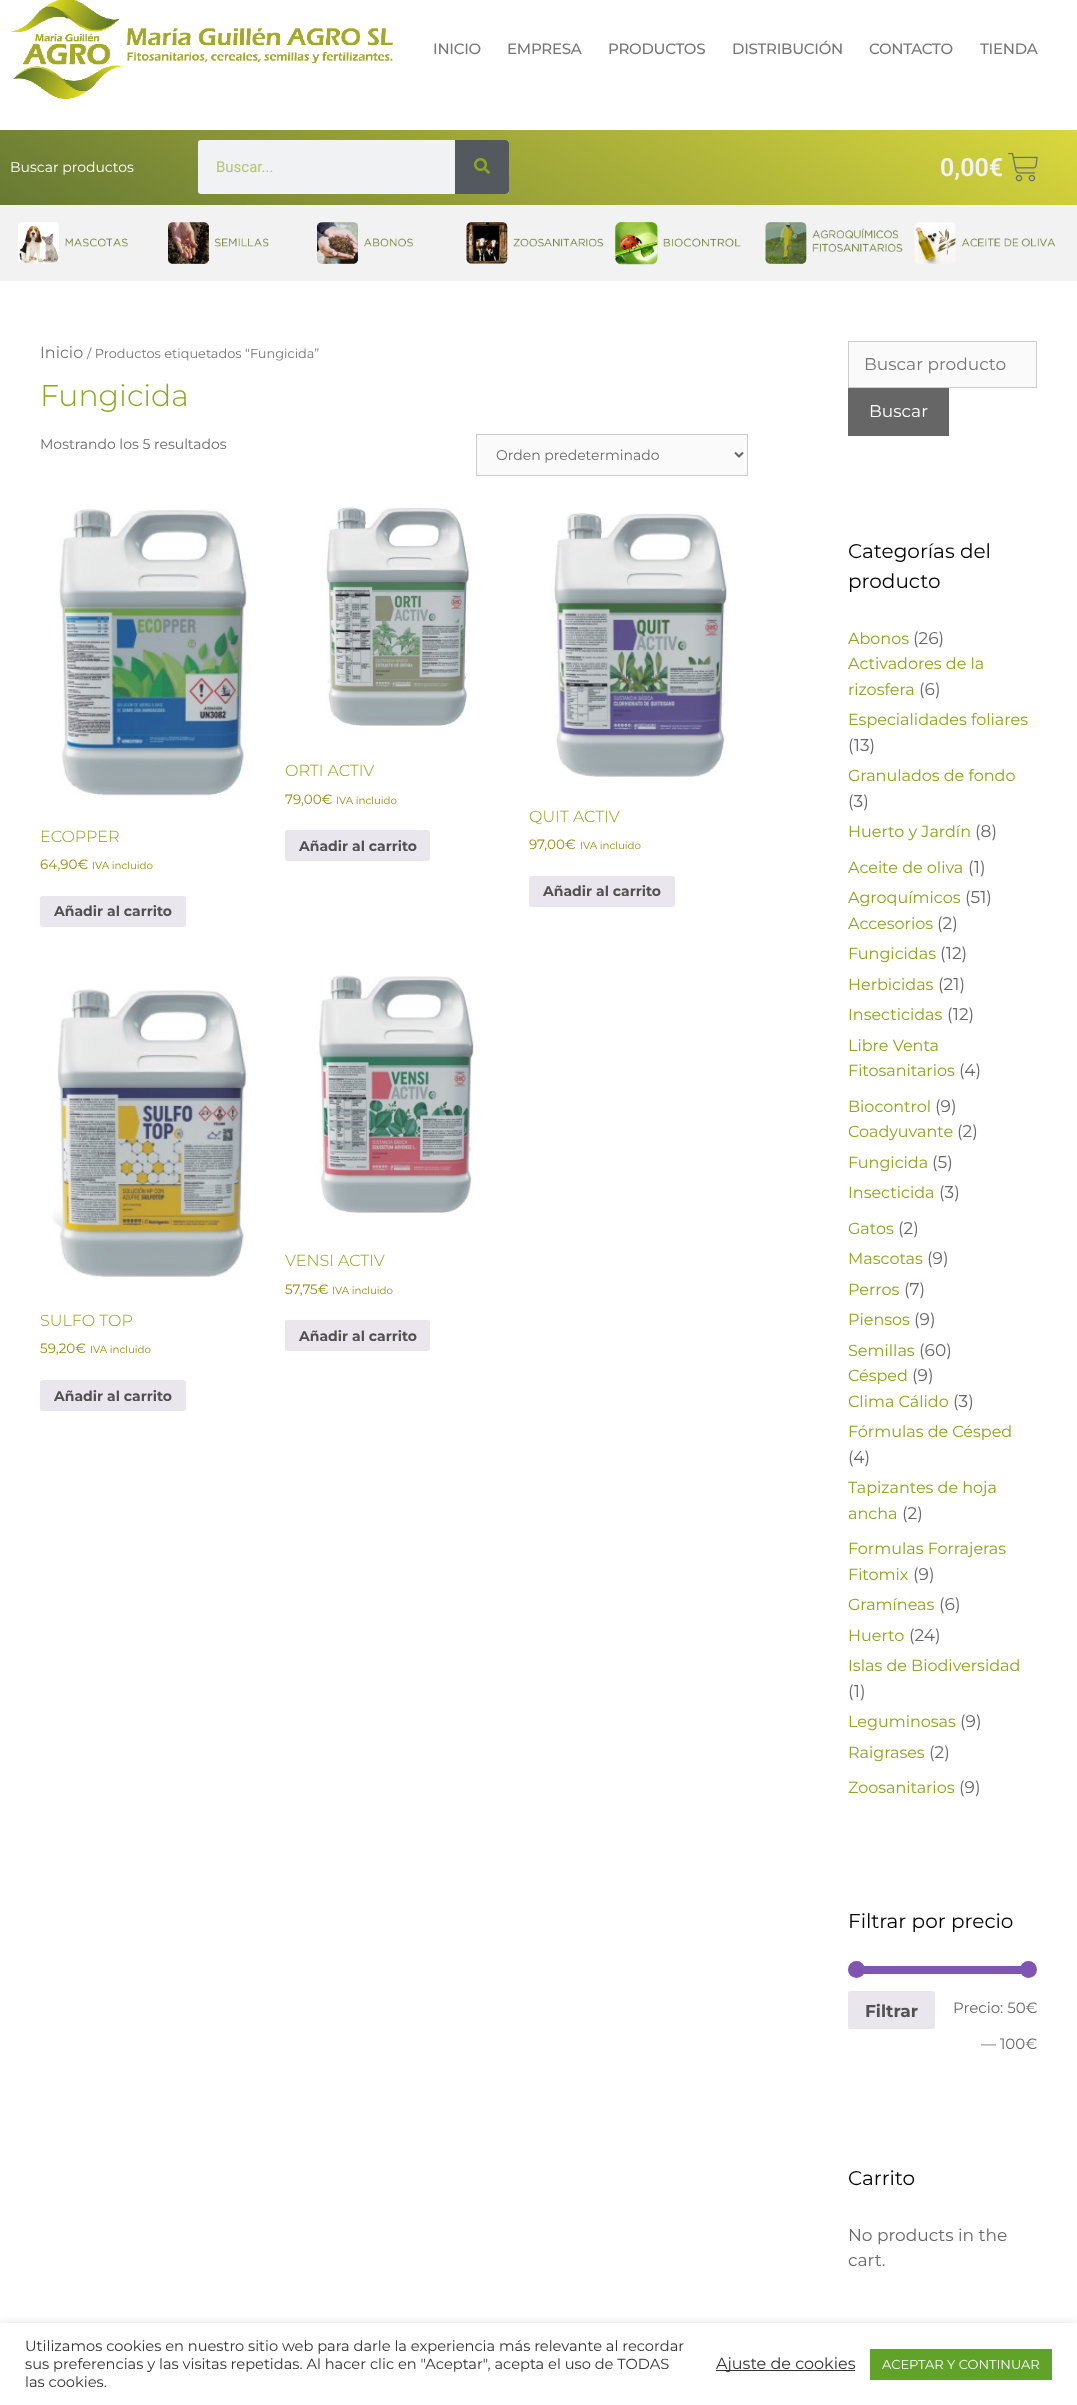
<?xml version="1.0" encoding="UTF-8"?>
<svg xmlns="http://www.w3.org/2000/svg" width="1077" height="2405">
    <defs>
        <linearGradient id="g1" gradientUnits="userSpaceOnUse" x1="689" y1="-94" x2="388" y2="429"><stop offset="0" stop-color="#DAD83D"/><stop offset="1" stop-color="#677934"/></linearGradient>
        <filter id="blur1" x="-50%" y="-200%" width="200%" height="500%"><feGaussianBlur stdDeviation="5"/></filter>
    </defs>
    <rect width="100%" height="100%" fill="#FFFFFF"/>
    <image x="10" y="0" width="383" height="99" href="img_01.png"/>
    <text x="433" y="54" font-family="Montserrat" font-size="15" font-weight="500" letter-spacing="-0.25" fill="#767676">INICIO</text>
    <text x="507" y="54" font-family="Montserrat" font-size="15" font-weight="500" letter-spacing="-0.25" fill="#767676">EMPRESA</text>
    <text x="608" y="54" font-family="Montserrat" font-size="15" font-weight="500" letter-spacing="-0.25" fill="#767676">PRODUCTOS</text>
    <text x="732" y="54" font-family="Montserrat" font-size="15" font-weight="500" letter-spacing="-0.25" fill="#767676">DISTRIBUCIÓN</text>
    <text x="869" y="54" font-family="Montserrat" font-size="15" font-weight="500" letter-spacing="-0.25" fill="#767676">CONTACTO</text>
    <text x="980" y="54" font-family="Montserrat" font-size="15" font-weight="500" letter-spacing="-0.25" fill="#767676">TIENDA</text>
    <rect x="0" y="130" width="1077" height="75" fill="url(#g1)"/>
    <text x="10" y="172" font-family="Montserrat" font-size="14" fill="#FFFFFF">Buscar productos</text>
    <rect x="198" y="140" width="311" height="54" rx="3" fill="#F1F2F3"/>
    <text x="216" y="172" font-family="Roboto" font-size="15" fill="#B4C572">Buscar...</text>
    <path d="M 455 140 H 506 C 507.5 140 509 141.5 509 143 V 191 C 509 192.5 507.5 194 506 194 H 455 Z" fill="#54595F"/>
    <image x="474" y="158" width="16" height="16" href="img_02.png"/>
    <text x="940" y="176" font-family="Roboto" font-size="25" font-weight="600" fill="#F2F2F2">0,00€</text>
    <image x="1008" y="152" width="30" height="30" href="img_03.png"/>
    <rect x="0" y="205" width="1077" height="76" fill="#F2F2F2"/>
    <image x="18" y="222" width="110" height="42" href="img_04.png"/>
    <image x="168" y="222" width="101" height="42" href="img_05.png"/>
    <image x="317" y="222" width="96" height="42" href="img_06.png"/>
    <image x="466" y="222" width="138" height="42" href="img_07.png"/>
    <image x="615" y="222" width="126" height="43" href="img_08.png"/>
    <image x="765" y="222" width="138" height="42" href="img_09.png"/>
    <image x="914" y="222" width="142" height="42" href="img_10.png"/>
    <text x="40" y="358" font-family="Montserrat" font-size="16" fill="#767676">Inicio</text>
    <text x="87" y="358" font-family="Montserrat" font-size="12.9" fill="#767676">/ Productos etiquetados “Fungicida”</text>
    <text x="40" y="406" font-family="Montserrat" font-size="30" font-weight="300" fill="#8BA71C">Fungicida</text>
    <text x="40" y="449" font-family="Montserrat" font-size="14" fill="#686868">Mostrando los 5 resultados</text>
    <rect x="476.5" y="434.5" width="271" height="41" fill="#FAFAFA" stroke="#CCCCCC"/>
    <path d="M 735 452.5 L 739 456.5 L 743 452.5" fill="none" stroke="#666666" stroke-width="2"/>
    <text x="496" y="460" font-family="Montserrat" font-size="14" fill="#686868">Orden predeterminado</text>
    <image x="58" y="508" width="190" height="288" href="img_11.png"/>
    <text x="40" y="842" font-family="Montserrat" font-size="16" font-weight="300" fill="#8BA71C">ECOPPER</text>
    <text x="40" y="869" font-family="Montserrat" font-size="13.5" fill="#958E09">64,90€</text>
    <text x="92" y="869" font-family="Montserrat" font-size="10.25" fill="#958E09">IVA incluido</text>
    <rect x="40" y="896" width="146" height="31" rx="3" fill="#E9E6ED"/>
    <text x="54" y="916" font-family="Montserrat" font-size="14" font-weight="700" fill="#515151">Añadir al carrito</text>
    <image x="326" y="507" width="144" height="220" href="img_12.png"/>
    <text x="285" y="776" font-family="Montserrat" font-size="16" font-weight="300" fill="#8BA71C">ORTI ACTIV</text>
    <text x="285" y="804" font-family="Montserrat" font-size="13.5" fill="#958E09">79,00€</text>
    <text x="336" y="804" font-family="Montserrat" font-size="10.25" fill="#958E09">IVA incluido</text>
    <rect x="285" y="830" width="145" height="31" rx="3" fill="#E9E6ED"/>
    <text x="299" y="851" font-family="Montserrat" font-size="14" font-weight="700" fill="#515151">Añadir al carrito</text>
    <image x="550" y="513" width="178" height="264" href="img_13.png"/>
    <text x="529" y="822" font-family="Montserrat" font-size="16" font-weight="300" fill="#8BA71C">QUIT ACTIV</text>
    <text x="529" y="849" font-family="Montserrat" font-size="13.5" fill="#958E09">97,00€</text>
    <text x="580" y="849" font-family="Montserrat" font-size="10.25" fill="#958E09">IVA incluido</text>
    <rect x="529" y="876" width="146" height="31" rx="3" fill="#E9E6ED"/>
    <text x="543" y="896" font-family="Montserrat" font-size="14" font-weight="700" fill="#515151">Añadir al carrito</text>
    <image x="315" y="975" width="160" height="238" href="img_14.png"/>
    <text x="285" y="1266" font-family="Montserrat" font-size="16" font-weight="300" fill="#8BA71C">VENSI ACTIV</text>
    <text x="285" y="1294" font-family="Montserrat" font-size="13.5" fill="#958E09">57,75€</text>
    <text x="332" y="1294" font-family="Montserrat" font-size="10.25" fill="#958E09">IVA incluido</text>
    <rect x="285" y="1320" width="145" height="31" rx="3" fill="#E9E6ED"/>
    <text x="299" y="1341" font-family="Montserrat" font-size="14" font-weight="700" fill="#515151">Añadir al carrito</text>
    <image x="52" y="989" width="196" height="288" href="img_15.png"/>
    <text x="40" y="1326" font-family="Montserrat" font-size="16" font-weight="300" fill="#8BA71C">SULFO TOP</text>
    <text x="40" y="1353" font-family="Montserrat" font-size="13.5" fill="#958E09">59,20€</text>
    <text x="90" y="1353" font-family="Montserrat" font-size="10.25" fill="#958E09">IVA incluido</text>
    <rect x="40" y="1380" width="146" height="31" rx="3" fill="#E9E6ED"/>
    <text x="54" y="1401" font-family="Montserrat" font-size="14" font-weight="700" fill="#515151">Añadir al carrito</text>
    <rect x="848.5" y="341.5" width="188" height="46" fill="#FAFAFA" stroke="#CCCCCC"/>
    <text x="864" y="370" font-family="Montserrat" font-size="17" fill="#767676">Buscar producto</text>
    <rect x="848" y="388" width="101" height="48" fill="#666666"/>
    <text x="869" y="417" font-family="Montserrat" font-size="17" fill="#FFFFFF">Buscar</text>
    <text font-family="Montserrat" font-size="20" fill="#000000">
        <tspan x="848" y="558">Categorías del</tspan>
        <tspan x="848" y="588">producto</tspan>
    </text>
    <text x="848" y="644" font-family="Montserrat" font-size="16" fill="#8BA71C">Abonos</text>
    <text x="913" y="644" font-family="Montserrat" font-size="17" fill="#686868">(26)</text>
    <text font-family="Montserrat" font-size="16" fill="#8BA71C">
        <tspan x="848" y="669">Activadores de la</tspan>
        <tspan x="848" y="695">rizosfera</tspan>
    </text>
    <text x="919" y="695" font-family="Montserrat" font-size="17" fill="#686868">(6)</text>
    <text x="848" y="725" font-family="Montserrat" font-size="16" fill="#8BA71C">Especialidades foliares</text>
    <text x="848" y="751" font-family="Montserrat" font-size="17" fill="#686868">(13)</text>
    <text x="848" y="781" font-family="Montserrat" font-size="16" fill="#8BA71C">Granulados de fondo</text>
    <text x="848" y="807" font-family="Montserrat" font-size="17" fill="#686868">(3)</text>
    <text x="848" y="837" font-family="Montserrat" font-size="16" fill="#8BA71C">Huerto y Jardín</text>
    <text x="975" y="837" font-family="Montserrat" font-size="17" fill="#686868">(8)</text>
    <text x="848" y="873" font-family="Montserrat" font-size="16" fill="#8BA71C">Aceite de oliva</text>
    <text x="968" y="873" font-family="Montserrat" font-size="17" fill="#686868">(1)</text>
    <text x="848" y="903" font-family="Montserrat" font-size="16" fill="#8BA71C">Agroquímicos</text>
    <text x="965" y="903" font-family="Montserrat" font-size="17" fill="#686868">(51)</text>
    <text x="848" y="929" font-family="Montserrat" font-size="16" fill="#8BA71C">Accesorios</text>
    <text x="937" y="929" font-family="Montserrat" font-size="17" fill="#686868">(2)</text>
    <text x="848" y="959" font-family="Montserrat" font-size="16" fill="#8BA71C">Fungicidas</text>
    <text x="940" y="959" font-family="Montserrat" font-size="17" fill="#686868">(12)</text>
    <text x="848" y="990" font-family="Montserrat" font-size="16" fill="#8BA71C">Herbicidas</text>
    <text x="938" y="990" font-family="Montserrat" font-size="17" fill="#686868">(21)</text>
    <text x="848" y="1020" font-family="Montserrat" font-size="16" fill="#8BA71C">Insecticidas</text>
    <text x="947" y="1020" font-family="Montserrat" font-size="17" fill="#686868">(12)</text>
    <text font-family="Montserrat" font-size="16" fill="#8BA71C">
        <tspan x="848" y="1051">Libre Venta</tspan>
        <tspan x="848" y="1076">Fitosanitarios</tspan>
    </text>
    <text x="959" y="1076" font-family="Montserrat" font-size="17" fill="#686868">(4)</text>
    <text x="848" y="1112" font-family="Montserrat" font-size="16" fill="#8BA71C">Biocontrol</text>
    <text x="935" y="1112" font-family="Montserrat" font-size="17" fill="#686868">(9)</text>
    <text x="848" y="1137" font-family="Montserrat" font-size="16" fill="#8BA71C">Coadyuvante</text>
    <text x="957" y="1137" font-family="Montserrat" font-size="17" fill="#686868">(2)</text>
    <text x="848" y="1168" font-family="Montserrat" font-size="16" fill="#8BA71C">Fungicida</text>
    <text x="932" y="1168" font-family="Montserrat" font-size="17" fill="#686868">(5)</text>
    <text x="848" y="1198" font-family="Montserrat" font-size="16" fill="#8BA71C">Insecticida</text>
    <text x="939" y="1198" font-family="Montserrat" font-size="17" fill="#686868">(3)</text>
    <text x="848" y="1234" font-family="Montserrat" font-size="16" fill="#8BA71C">Gatos</text>
    <text x="898" y="1234" font-family="Montserrat" font-size="17" fill="#686868">(2)</text>
    <text x="848" y="1264" font-family="Montserrat" font-size="16" fill="#8BA71C">Mascotas</text>
    <text x="927" y="1264" font-family="Montserrat" font-size="17" fill="#686868">(9)</text>
    <text x="848" y="1295" font-family="Montserrat" font-size="16" fill="#8BA71C">Perros</text>
    <text x="904" y="1295" font-family="Montserrat" font-size="17" fill="#686868">(7)</text>
    <text x="848" y="1325" font-family="Montserrat" font-size="16" fill="#8BA71C">Piensos</text>
    <text x="914" y="1325" font-family="Montserrat" font-size="17" fill="#686868">(9)</text>
    <text x="848" y="1356" font-family="Montserrat" font-size="16" fill="#8BA71C">Semillas</text>
    <text x="919" y="1356" font-family="Montserrat" font-size="17" fill="#686868">(60)</text>
    <text x="848" y="1381" font-family="Montserrat" font-size="16" fill="#8BA71C">Césped</text>
    <text x="912" y="1381" font-family="Montserrat" font-size="17" fill="#686868">(9)</text>
    <text x="848" y="1407" font-family="Montserrat" font-size="16" fill="#8BA71C">Clima Cálido</text>
    <text x="953" y="1407" font-family="Montserrat" font-size="17" fill="#686868">(3)</text>
    <text x="848" y="1437" font-family="Montserrat" font-size="16" fill="#8BA71C">Fórmulas de Césped</text>
    <text x="848" y="1463" font-family="Montserrat" font-size="17" fill="#686868">(4)</text>
    <text font-family="Montserrat" font-size="16" fill="#8BA71C">
        <tspan x="848" y="1493">Tapizantes de hoja</tspan>
        <tspan x="848" y="1519">ancha</tspan>
    </text>
    <text x="902" y="1519" font-family="Montserrat" font-size="17" fill="#686868">(2)</text>
    <text font-family="Montserrat" font-size="16" fill="#8BA71C">
        <tspan x="848" y="1554">Formulas Forrajeras</tspan>
        <tspan x="848" y="1580">Fitomix</tspan>
    </text>
    <text x="913" y="1580" font-family="Montserrat" font-size="17" fill="#686868">(9)</text>
    <text x="848" y="1610" font-family="Montserrat" font-size="16" fill="#8BA71C">Gramíneas</text>
    <text x="939" y="1610" font-family="Montserrat" font-size="17" fill="#686868">(6)</text>
    <text x="848" y="1641" font-family="Montserrat" font-size="16" fill="#8BA71C">Huerto</text>
    <text x="909" y="1641" font-family="Montserrat" font-size="17" fill="#686868">(24)</text>
    <text x="848" y="1671" font-family="Montserrat" font-size="16" fill="#8BA71C">Islas de Biodiversidad</text>
    <text x="848" y="1697" font-family="Montserrat" font-size="17" fill="#686868">(1)</text>
    <text x="848" y="1727" font-family="Montserrat" font-size="16" fill="#8BA71C">Leguminosas</text>
    <text x="960" y="1727" font-family="Montserrat" font-size="17" fill="#686868">(9)</text>
    <text x="848" y="1758" font-family="Montserrat" font-size="16" fill="#8BA71C">Raigrases</text>
    <text x="929" y="1758" font-family="Montserrat" font-size="17" fill="#686868">(2)</text>
    <text x="848" y="1793" font-family="Montserrat" font-size="16" fill="#8BA71C">Zoosanitarios</text>
    <text x="959" y="1793" font-family="Montserrat" font-size="17" fill="#686868">(9)</text>
    <text x="848" y="1928" font-family="Montserrat" font-size="20" fill="#000000">Filtrar por precio</text>
    <rect x="856" y="1966" width="173" height="8" fill="#7F54B3"/>
    <circle cx="856.5" cy="1969.5" r="8.5" fill="#7F54B3"/>
    <circle cx="1028.5" cy="1969.5" r="8.5" fill="#7F54B3"/>
    <rect x="848" y="1991" width="87" height="38" rx="3" fill="#E9E6ED"/>
    <text x="865" y="2017" font-family="Montserrat" font-size="17" font-weight="700" fill="#515151">Filtrar</text>
    <text x="953" y="2013" font-family="Montserrat" font-size="15" fill="#686868">Precio: 50€</text>
    <text x="981" y="2049" font-family="Montserrat" font-size="15" fill="#686868">— 100€</text>
    <text x="848" y="2185" font-family="Montserrat" font-size="20" fill="#000000">Carrito</text>
    <text font-family="Montserrat" font-size="17" fill="#686868">
        <tspan x="848" y="2241">No products in the</tspan>
        <tspan x="848" y="2266">cart.</tspan>
    </text>
    <rect x="0" y="2322" width="1077" height="82" fill="#ACABAB" fill-opacity="0.3" filter="url(#blur1)"/>
    <rect x="0" y="2323" width="1077" height="82" fill="#FFFFFF"/>
    <text font-family="Montserrat" font-size="14.65" fill="#333333">
        <tspan x="25" y="2351">Utilizamos cookies en nuestro sitio web para darle la experiencia más relevante al recordar</tspan>
        <tspan x="25" y="2369">sus preferencias y las visitas repetidas. Al hacer clic en "Aceptar", acepta el uso de TODAS</tspan>
        <tspan x="25" y="2387">las cookies.</tspan>
    </text>
    <rect x="716" y="2370" width="139" height="1" fill="#333333"/>
    <text x="716" y="2369" font-family="Montserrat" font-size="16" fill="#333333">Ajuste de cookies</text>
    <rect x="870" y="2349" width="182" height="31" fill="#61A229"/>
    <text x="882" y="2369" font-family="Montserrat" font-size="13" fill="#FFFFFF">ACEPTAR Y CONTINUAR</text>
</svg>
